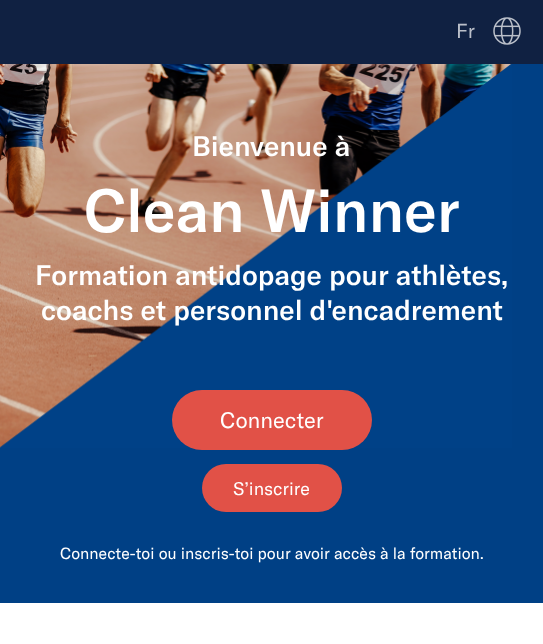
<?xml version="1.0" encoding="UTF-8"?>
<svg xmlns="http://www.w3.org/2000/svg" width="543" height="644">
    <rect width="100%" height="100%" fill="#102142"/>
    <text x="456" y="38" font-family="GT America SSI" font-size="20" fill="#BABFC9">Fr</text>
    <image x="493" y="17" width="28" height="28" href="img_01.png"/>
    <rect x="0" y="603" width="543" height="41" fill="#FFFFFF"/>
    <rect x="0" y="64" width="543" height="539" fill="#004085"/>
    <image x="0" y="64" width="512" height="384" href="img_02.png"/>
    <text x="192" y="156" font-family="GT America SSI" font-size="28" font-weight="500" fill="#FFFFFF">Bienvenue à</text>
    <text x="84" y="232" font-family="GT America SSI" font-size="60" font-weight="500" fill="#FFFFFF">Clean Winner</text>
    <text x="35" y="285" font-family="GT America SSI" font-size="28" font-weight="500" fill="#FFFFFF">Formation antidopage pour athlètes,</text>
    <text x="41" y="320" font-family="GT America SSI" font-size="28" font-weight="500" fill="#FFFFFF">coachs et personnel d'encadrement</text>
    <rect x="172" y="390" width="200" height="60" rx="30" fill="#E15147"/>
    <text x="220" y="428" font-family="GT America SSI" font-size="22" fill="#FFFFFF">Connecter</text>
    <rect x="202" y="464" width="140" height="48" rx="24" fill="#E15147"/>
    <text x="233" y="495" font-family="GT America SSI" font-size="18" fill="#FFFFFF">S’inscrire</text>
    <text x="60" y="559" font-family="GT America SSI" font-size="16" fill="#FFFFFF">Connecte-toi ou inscris-toi pour avoir accès à la formation.</text>
</svg>
